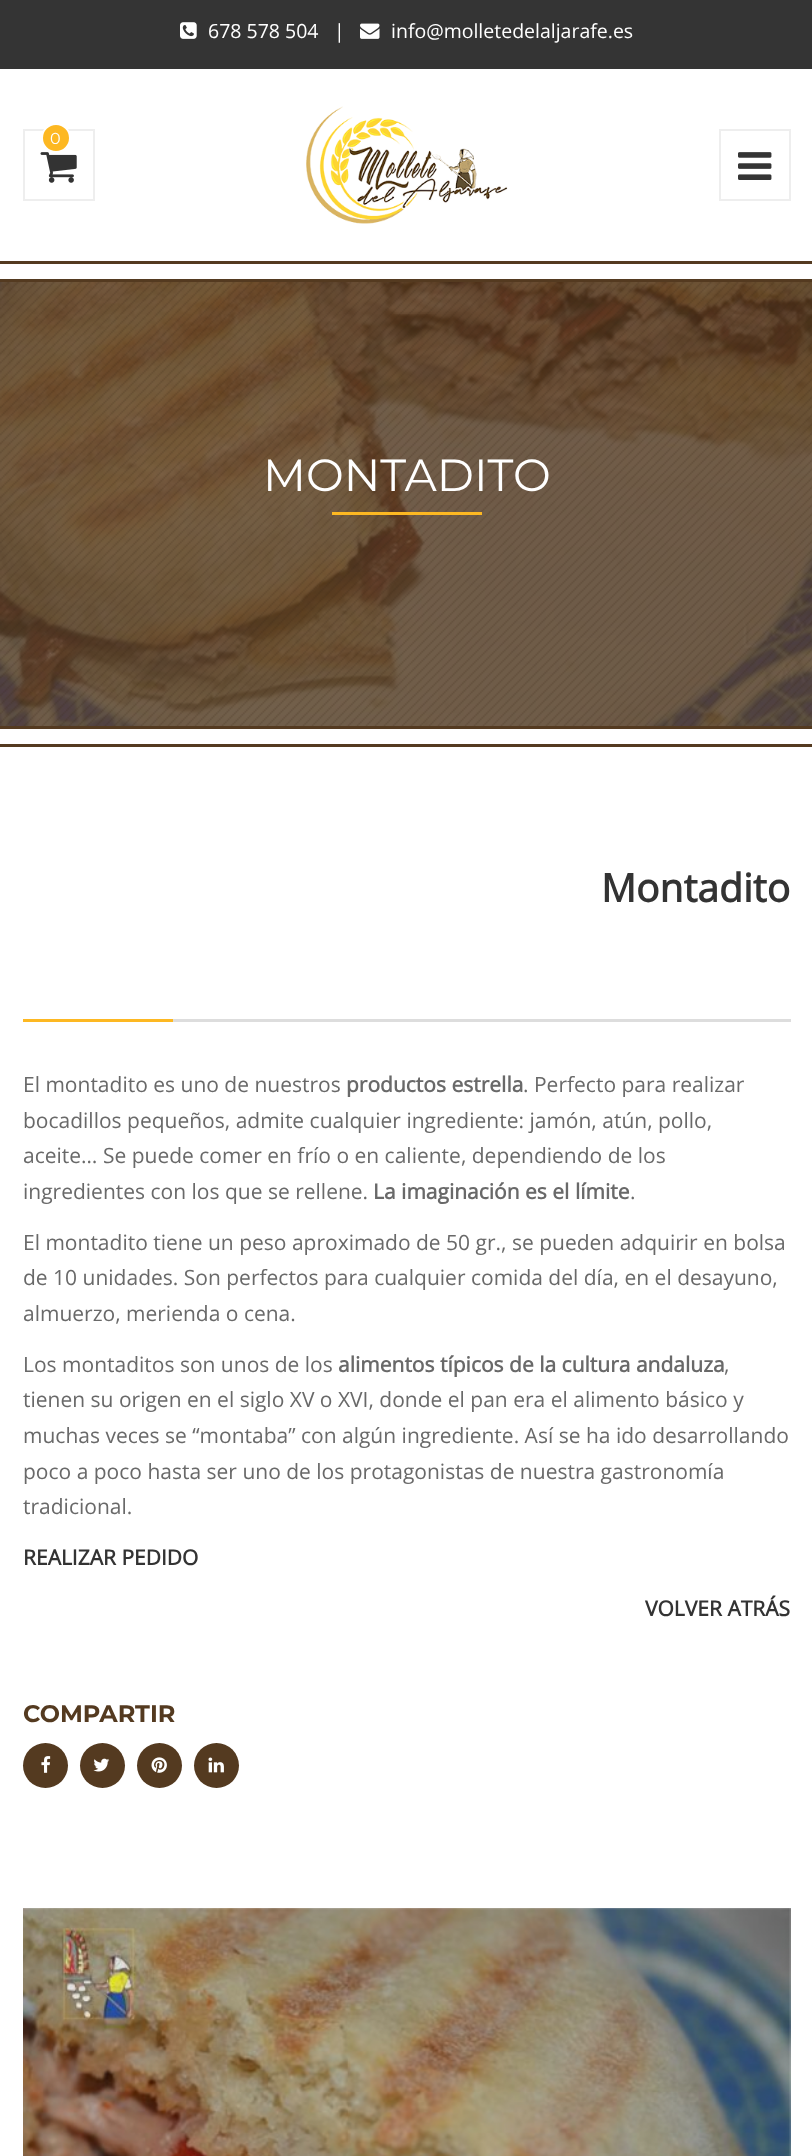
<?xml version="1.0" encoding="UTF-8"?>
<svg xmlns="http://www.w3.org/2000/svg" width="812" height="2156">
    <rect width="100%" height="100%" fill="#FFFFFF"/>
    <rect x="0" y="0" width="812" height="69" fill="#343434"/>
    <image x="180" y="22" width="17" height="17" href="img_01.png"/>
    <text x="208" y="38" font-family="Open Sans" font-size="19.5" fill="#FFFFFF">678 578 504</text>
    <text x="334" y="38" font-family="Open Sans" font-size="19.5" fill="#FFFFFF">|</text>
    <image x="360" y="23" width="20" height="16" href="img_02.png"/>
    <text x="391" y="38" font-family="Open Sans" font-size="19.5" fill="#FFFFFF">info@molletedelaljarafe.es</text>
    <rect x="24" y="130" width="70" height="70" fill="none" stroke="#EEEEEE" stroke-width="2"/>
    <image x="40" y="152" width="37" height="31" href="img_03.png"/>
    <circle cx="56" cy="138" r="14" fill="#FDB822" stroke="#FFFFFF" stroke-width="2"/>
    <text x="50" y="144" font-family="Montserrat" font-size="16" fill="#FFFFFF">0</text>
    <image x="306" y="106" width="202" height="118" href="img_04.png"/>
    <rect x="720" y="130" width="70" height="70" fill="none" stroke="#EEEEEE" stroke-width="2"/>
    <image x="738" y="152" width="34" height="28" href="img_05.png"/>
    <rect x="0" y="261" width="812" height="3" fill="#543A20"/>
    <rect x="0" y="279" width="812" height="3" fill="#543A20"/>
    <rect x="0" y="726" width="812" height="3" fill="#543A20"/>
    <image x="0" y="282" width="812" height="444" href="img_06.png"/>
    <image x="0" y="282" width="812" height="444" href="img_07.png"/>
    <text x="263" y="491" font-family="Montserrat" font-size="45" fill="#FFFFFF">MONTADITO</text>
    <rect x="332" y="512" width="150" height="3" fill="#FDB822"/>
    <rect x="0" y="744" width="812" height="3" fill="#543A20"/>
    <text x="601" y="902" font-family="Open Sans" font-size="39" font-weight="700" fill="#333333">Montadito</text>
    <rect x="23" y="1019" width="150" height="3" fill="#FDB822"/>
    <rect x="173" y="1019" width="618" height="3" fill="#DDDDDD"/>
    <text x="23" y="1092" font-family="Open Sans" font-size="21" fill="#696969">El montadito es uno de nuestros</text>
    <text x="346" y="1092" font-family="Open Sans" font-size="21" font-weight="700" fill="#696969">productos estrella</text>
    <text x="523" y="1092" font-family="Open Sans" font-size="21" fill="#696969">. Perfecto para realizar</text>
    <text font-family="Open Sans" font-size="21" fill="#696969">
        <tspan x="23" y="1128">bocadillos pequeños, admite cualquier ingrediente: jamón, atún, pollo,</tspan>
        <tspan x="23" y="1163">aceite… Se puede comer en frío o en caliente, dependiendo de los</tspan>
        <tspan x="23" y="1199">ingredientes con los que se rellene.</tspan>
    </text>
    <text x="373" y="1199" font-family="Open Sans" font-size="21" font-weight="700" fill="#696969">La imaginación es el límite</text>
    <text x="630" y="1199" font-family="Open Sans" font-size="21" fill="#696969">.</text>
    <text font-family="Open Sans" font-size="21" fill="#696969">
        <tspan x="23" y="1250">El montadito tiene un peso aproximado de 50 gr., se pueden adquirir en bolsa</tspan>
        <tspan x="23" y="1285">de 10 unidades. Son perfectos para cualquier comida del día, en el desayuno,</tspan>
        <tspan x="23" y="1321">almuerzo, merienda o cena.</tspan>
    </text>
    <text x="23" y="1372" font-family="Open Sans" font-size="21" fill="#696969">Los montaditos son unos de los</text>
    <text x="338" y="1372" font-family="Open Sans" font-size="21" font-weight="700" fill="#696969">alimentos típicos de la cultura andaluza</text>
    <text x="724" y="1372" font-family="Open Sans" font-size="21" fill="#696969">,</text>
    <text font-family="Open Sans" font-size="21" fill="#696969">
        <tspan x="23" y="1407">tienen su origen en el siglo XV o XVI, donde el pan era el alimento básico y</tspan>
        <tspan x="23" y="1443">muchas veces se “montaba” con algún ingrediente. Así se ha ido desarrollando</tspan>
        <tspan x="23" y="1479">poco a poco hasta ser uno de los protagonistas de nuestra gastronomía</tspan>
        <tspan x="23" y="1514">tradicional.</tspan>
    </text>
    <text x="23" y="1565" font-family="Open Sans" font-size="21" font-weight="700" fill="#333333">REALIZAR PEDIDO</text>
    <text x="645" y="1616" font-family="Open Sans" font-size="21" font-weight="700" fill="#333333">VOLVER ATRÁS</text>
    <text x="23" y="1722" font-family="Montserrat" font-size="24" font-weight="700" fill="#543A20">COMPARTIR</text>
    <circle cx="45.5" cy="1765.5" r="22.5" fill="#543A20"/>
    <image x="41" y="1756" width="10" height="17" href="img_08.png"/>
    <circle cx="102.5" cy="1765.5" r="22.5" fill="#543A20"/>
    <image x="93" y="1758" width="17" height="14" href="img_09.png"/>
    <circle cx="159.5" cy="1765.5" r="22.5" fill="#543A20"/>
    <image x="151" y="1757" width="16" height="16" href="img_10.png"/>
    <circle cx="216.5" cy="1765.5" r="22.5" fill="#543A20"/>
    <image x="208" y="1757" width="16" height="16" href="img_11.png"/>
    <image x="23" y="1908" width="768" height="248" href="img_12.png"/>
</svg>
